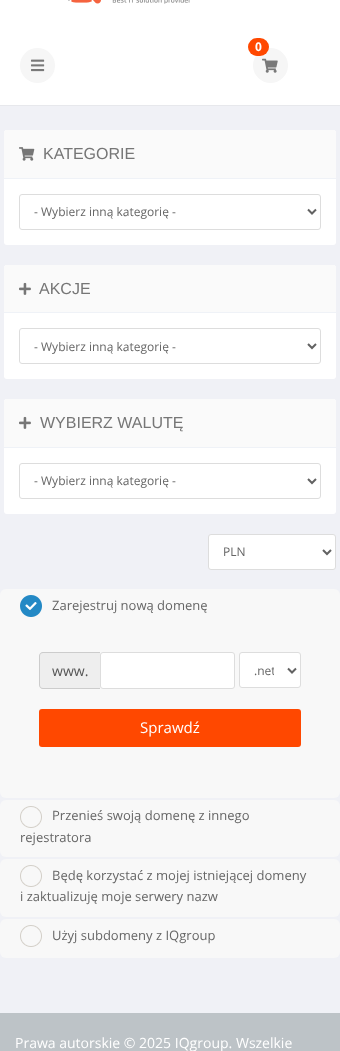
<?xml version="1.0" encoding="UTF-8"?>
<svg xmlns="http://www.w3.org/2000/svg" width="340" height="1051">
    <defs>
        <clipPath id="clip1"><rect x="254" y="661" width="20" height="19"/></clipPath>
    </defs>
    <rect width="100%" height="100%" fill="#F0F1F6"/>
    <rect x="0" y="0" width="340" height="105" fill="#FFFFFF"/>
    <image x="68" y="0" width="122" height="4" href="img_01.png"/>
    <circle cx="270.5" cy="65.5" r="17.5" fill="#F6F6F6"/>
    <rect x="248" y="38" width="21" height="18" rx="9" fill="#FF4800"/>
    <text x="255" y="51" font-family="Open Sans" font-size="12" font-weight="700" fill="#FFFFFF">0</text>
    <image x="262" y="58" width="16" height="15" href="img_02.png"/>
    <circle cx="37.5" cy="65.5" r="17.5" fill="#F6F6F6"/>
    <image x="31" y="59" width="14" height="13" href="img_03.png"/>
    <rect x="0" y="105" width="340" height="1" fill="#E7E8EC"/>
    <rect x="4" y="130" width="332" height="115" rx="3" fill="#FFFFFF"/>
    <path d="M 7 130 H 333 C 334.5 130 336 131.5 336 133 V 179 H 4 V 133 C 4 131.5 5.5 130 7 130 Z" fill="#FAFAFA"/>
    <rect x="4" y="178" width="332" height="1" fill="#EFF2F7"/>
    <image x="19" y="147" width="16" height="14" href="img_04.png"/>
    <text x="43" y="159" font-family="Liberation Sans" font-size="16" fill="#767676">KATEGORIE</text>
    <rect x="19.5" y="194.5" width="301" height="35" rx="2.5" fill="none" stroke="#DDDDDD"/>
    <path d="M 308 209.5 L 312 213.5 L 316 209.5" fill="none" stroke="#626262" stroke-width="2"/>
    <text x="34" y="216" font-family="Open Sans" font-size="12" fill="#666666">- Wybierz inną kategorię -</text>
    <rect x="4" y="265" width="332" height="114" rx="3" fill="#FFFFFF"/>
    <path d="M 7 265 H 333 C 334.5 265 336 266.5 336 268 V 313 H 4 V 268 C 4 266.5 5.5 265 7 265 Z" fill="#FAFAFA"/>
    <rect x="4" y="312" width="332" height="1" fill="#EFF2F7"/>
    <image x="19" y="282" width="12" height="13" href="img_05.png"/>
    <text x="39" y="294" font-family="Liberation Sans" font-size="16" fill="#767676">AKCJE</text>
    <rect x="19.5" y="328.5" width="301" height="35" rx="2.5" fill="none" stroke="#DDDDDD"/>
    <path d="M 308 344 L 312 348 L 316 344" fill="none" stroke="#626262" stroke-width="2"/>
    <text x="34" y="351" font-family="Open Sans" font-size="12" fill="#666666">- Wybierz inną kategorię -</text>
    <rect x="4" y="399" width="332" height="115" rx="3" fill="#FFFFFF"/>
    <path d="M 7 399 H 333 C 334.5 399 336 400.5 336 402 V 448 H 4 V 402 C 4 400.5 5.5 399 7 399 Z" fill="#FAFAFA"/>
    <rect x="4" y="447" width="332" height="1" fill="#EFF2F7"/>
    <image x="19" y="416" width="12" height="13" href="img_05.png"/>
    <text x="40" y="428" font-family="Liberation Sans" font-size="16" fill="#767676">WYBIERZ WALUTĘ</text>
    <rect x="19.5" y="463.5" width="301" height="35" rx="2.5" fill="none" stroke="#DDDDDD"/>
    <path d="M 308 479 L 312 483 L 316 479" fill="none" stroke="#626262" stroke-width="2"/>
    <text x="34" y="485" font-family="Open Sans" font-size="12" fill="#666666">- Wybierz inną kategorię -</text>
    <rect x="208.5" y="534.5" width="127" height="35" rx="2.5" fill="#FFFFFF" stroke="#DDDDDD"/>
    <path d="M 323 550 L 327 554 L 331 550" fill="none" stroke="#626262" stroke-width="2"/>
    <text x="223" y="556" font-family="Open Sans" font-size="12" fill="#666666">PLN</text>
    <rect x="0" y="589" width="340" height="209" rx="6" fill="#F8F8F8"/>
    <image x="20" y="595" width="22" height="22" href="img_06.png"/>
    <text x="52" y="610" font-family="Open Sans" font-size="13" fill="#666666">Zarejestruj nową domenę</text>
    <path d="M 43 652 H 100 V 689 H 43 C 41 689 39 687 39 685 V 656 C 39 654 41 652 43 652 Z" fill="#EEEEEE"/>
    <path d="M 43 652 H 100 V 689 H 43 C 41 689 39 687 39 685 V 656 C 39 654 41 652 43 652 Z M 43 653 H 100 V 688 H 43 C 41 688 40 687 40 685 V 656 C 40 654 41 653 43 653 Z" fill="#CCCCCC" fill-rule="evenodd"/>
    <text x="52" y="676" font-family="Open Sans" font-size="14" fill="#555555">www.</text>
    <rect x="100.5" y="652.5" width="134" height="36" rx="2.5" fill="#FFFFFF" stroke="#DDDDDD"/>
    <rect x="239.5" y="652.5" width="61" height="35" rx="2.5" fill="#FFFFFF" stroke="#DDDDDD"/>
    <path d="M 288 668.5 L 292 672.5 L 296 668.5" fill="none" stroke="#626262" stroke-width="2"/>
    <g clip-path="url(#clip1)">
        <text x="254" y="675" font-family="Open Sans" font-size="12" fill="#666666">.net</text>
    </g>
    <rect x="39" y="709" width="262" height="38" rx="3" fill="#FF4800"/>
    <text x="140" y="733" font-family="Open Sans" font-size="15" fill="#FFFFFF">Sprawdź</text>
    <rect x="0" y="800" width="340" height="57" rx="6" fill="#F8F8F8"/>
    <image x="20" y="806" width="22" height="22" href="img_07.png"/>
    <text x="52" y="820" font-family="Open Sans" font-size="13" fill="#666666">Przenieś swoją domenę z innego</text>
    <text x="20" y="842" font-family="Open Sans" font-size="13" fill="#666666">rejestratora</text>
    <rect x="0" y="859" width="340" height="58" rx="6" fill="#F8F8F8"/>
    <image x="20" y="865" width="22" height="22" href="img_07.png"/>
    <text x="52" y="880" font-family="Open Sans" font-size="13" fill="#666666">Będę korzystać z mojej istniejącej domeny</text>
    <text x="20" y="901" font-family="Open Sans" font-size="13" fill="#666666">i zaktualizuję moje serwery nazw</text>
    <rect x="0" y="919" width="340" height="39" rx="6" fill="#F8F8F8"/>
    <image x="20" y="925" width="22" height="22" href="img_07.png"/>
    <text x="52" y="940" font-family="Open Sans" font-size="13" fill="#666666">Użyj subdomeny z IQgroup</text>
    <rect x="0" y="1013" width="340" height="38" fill="#BDC3C7"/>
    <text x="15" y="1048" font-family="Open Sans" font-size="14" fill="#FFFFFF">Prawa autorskie © 2025 IQgroup. Wszelkie</text>
</svg>
